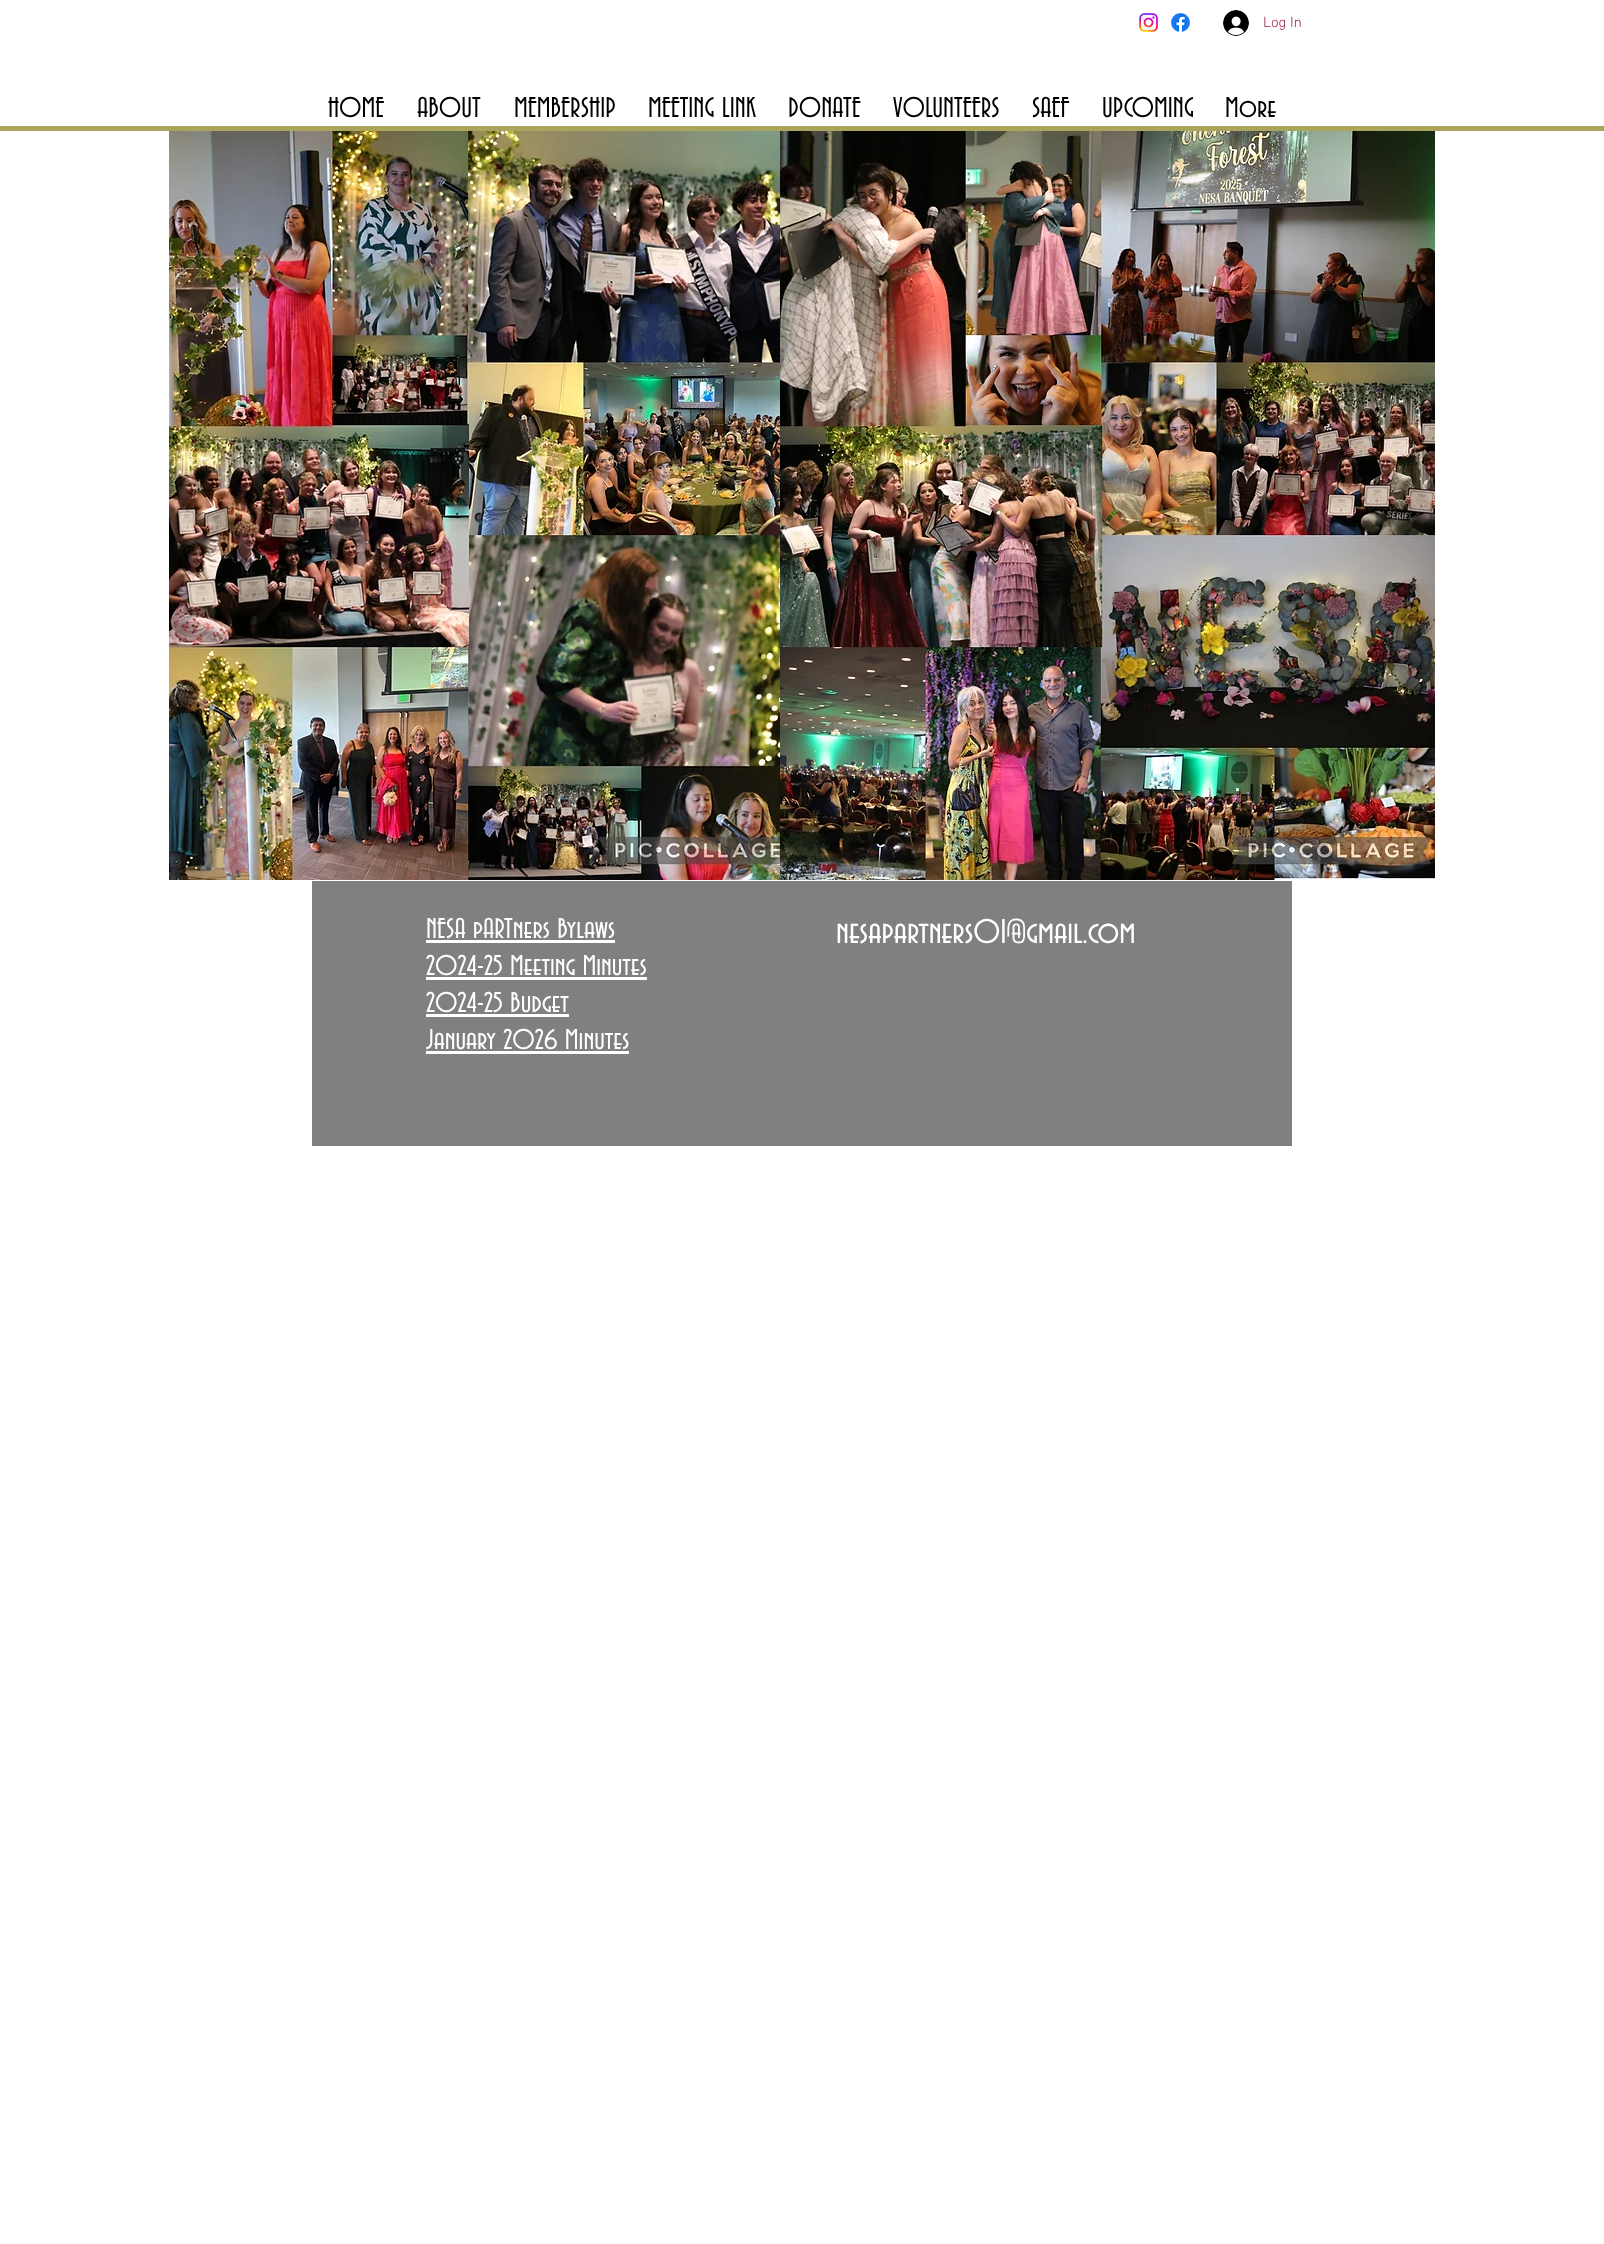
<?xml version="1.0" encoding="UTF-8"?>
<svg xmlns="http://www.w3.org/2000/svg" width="1604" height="2244">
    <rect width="100%" height="100%" fill="#FFFFFF"/>
    <image x="1139" y="13" width="19" height="19" href="img_01.png"/>
    <image x="1171" y="13" width="19" height="19" href="img_02.png"/>
    <image x="1223" y="10" width="26" height="26" href="img_03.png"/>
    <text x="1263" y="27" font-family="'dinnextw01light'" font-size="15" font-weight="300" fill="#9F2747">Log In</text>
    <text x="328" y="117" font-family="'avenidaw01'" font-size="30" fill="#000000">HOME</text>
    <text x="417" y="117" font-family="'avenidaw01'" font-size="30" fill="#000000">ABOUT</text>
    <text x="514" y="117" font-family="'avenidaw01'" font-size="30" fill="#000000">MEMBERSHIP</text>
    <text x="648" y="117" font-family="'avenidaw01'" font-size="30" fill="#000000">MEETING LINK</text>
    <text x="788" y="117" font-family="'avenidaw01'" font-size="30" fill="#000000">DONATE</text>
    <text x="893" y="117" font-family="'avenidaw01'" font-size="30" fill="#000000">VOLUNTEERS</text>
    <text x="1032" y="117" font-family="'avenidaw01'" font-size="30" fill="#000000">SAEF</text>
    <text x="1102" y="117" font-family="'avenidaw01'" font-size="30" fill="#000000">UPCOMING</text>
    <text x="1225" y="117" font-family="'avenidaw01'" font-size="30" fill="#000000">More</text>
    <rect x="0" y="126" width="1604" height="5" fill="#AAA55B"/>
    <image x="169" y="131" width="611" height="749" href="img_04.png"/>
    <image x="780" y="131" width="655" height="749" href="img_05.png"/>
    <rect x="312" y="881" width="980" height="265" fill="#808080"/>
    <text x="426" y="938" font-family="'avenidaw01'" font-size="30" fill="#FFFFFF">NESA pARTners Bylaws</text>
    <rect x="426" y="940" width="189" height="3" fill="#FFFFFF"/>
    <text x="426" y="975" font-family="'avenidaw01'" font-size="30" fill="#FFFFFF">2024-25 Meeting Minutes</text>
    <rect x="426" y="977" width="221" height="3" fill="#FFFFFF"/>
    <text x="426" y="1012" font-family="'avenidaw01'" font-size="30" fill="#FFFFFF">2024-25 Budget</text>
    <rect x="426" y="1014" width="143" height="3" fill="#FFFFFF"/>
    <text x="426" y="1049" font-family="'avenidaw01'" font-size="30" fill="#FFFFFF">January 2026 Minutes</text>
    <rect x="426" y="1051" width="203" height="3" fill="#FFFFFF"/>
    <text x="836" y="943" font-family="'avenidaw01'" font-size="36" fill="#FFFFFF">nesapartners01@gmail.com</text>
</svg>
